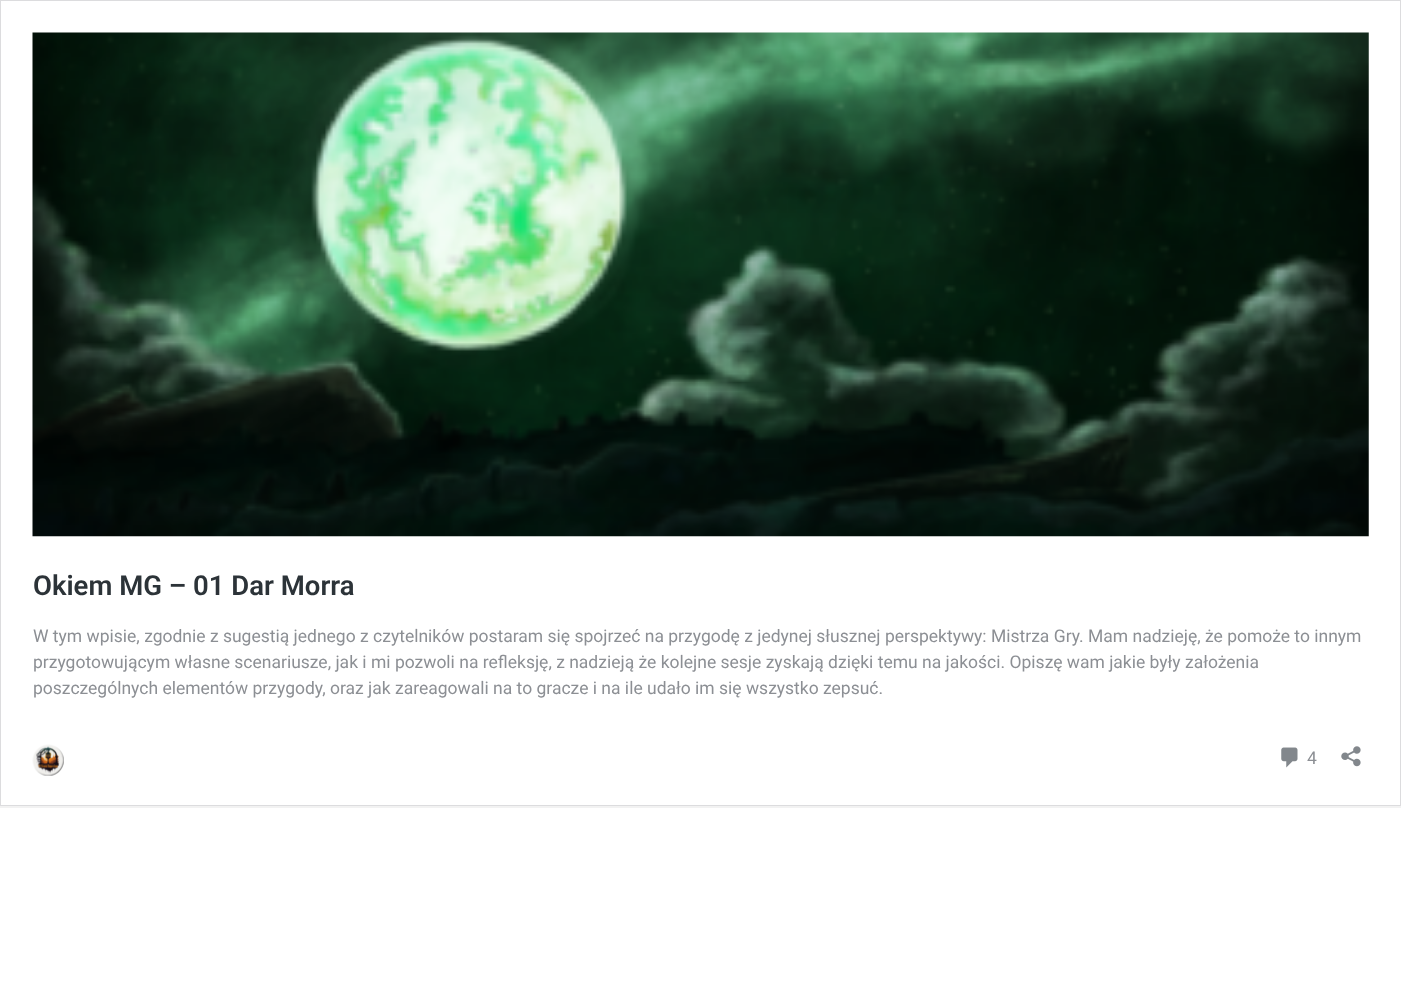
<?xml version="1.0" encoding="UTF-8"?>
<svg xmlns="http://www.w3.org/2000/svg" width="1401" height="998">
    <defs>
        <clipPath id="clip1"><rect x="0" y="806" width="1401" height="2"/></clipPath>
        <filter id="blur1" x="-50%" y="-200%" width="200%" height="500%"><feGaussianBlur stdDeviation="0.5"/></filter>
    </defs>
    <rect width="100%" height="100%" fill="#FFFFFF"/>
    <g clip-path="url(#clip1)">
        <rect x="0" y="1" width="1401" height="807" fill="#000000" fill-opacity="0.05" filter="url(#blur1)"/>
    </g>
    <rect x="0.5" y="0.5" width="1400" height="805" fill="none" stroke="#DCDCDE"/>
    <image x="32" y="32" width="1337" height="505" href="img_01.png"/>
    <text x="33" y="595" font-family="Roboto" font-size="27.5" font-weight="600" fill="#2C3338">Okiem MG – 01 Dar Morra</text>
    <text font-family="Roboto" font-size="17.5" fill="#8C8F94">
        <tspan x="33" y="642">W tym wpisie, zgodnie z sugestią jednego z czytelników postaram się spojrzeć na przygodę z jedynej słusznej perspektywy: Mistrza Gry. Mam nadzieję, że pomoże to innym</tspan>
        <tspan x="33" y="668">przygotowującym własne scenariusze, jak i mi pozwoli na refleksję, z nadzieją że kolejne sesje zyskają dzięki temu na jakości. Opiszę wam jakie były założenia</tspan>
        <tspan x="33" y="694">poszczególnych elementów przygody, oraz jak zareagowali na to gracze i na ile udało im się wszystko zepsuć.</tspan>
    </text>
    <image x="32" y="744" width="32" height="32" href="img_02.png"/>
    <image x="1281" y="747" width="17" height="21" href="img_03.png"/>
    <text x="1307" y="764" font-family="Roboto" font-size="17.5" fill="#8C8F94">4</text>
    <image x="1341" y="746" width="20" height="21" href="img_04.png"/>
</svg>
